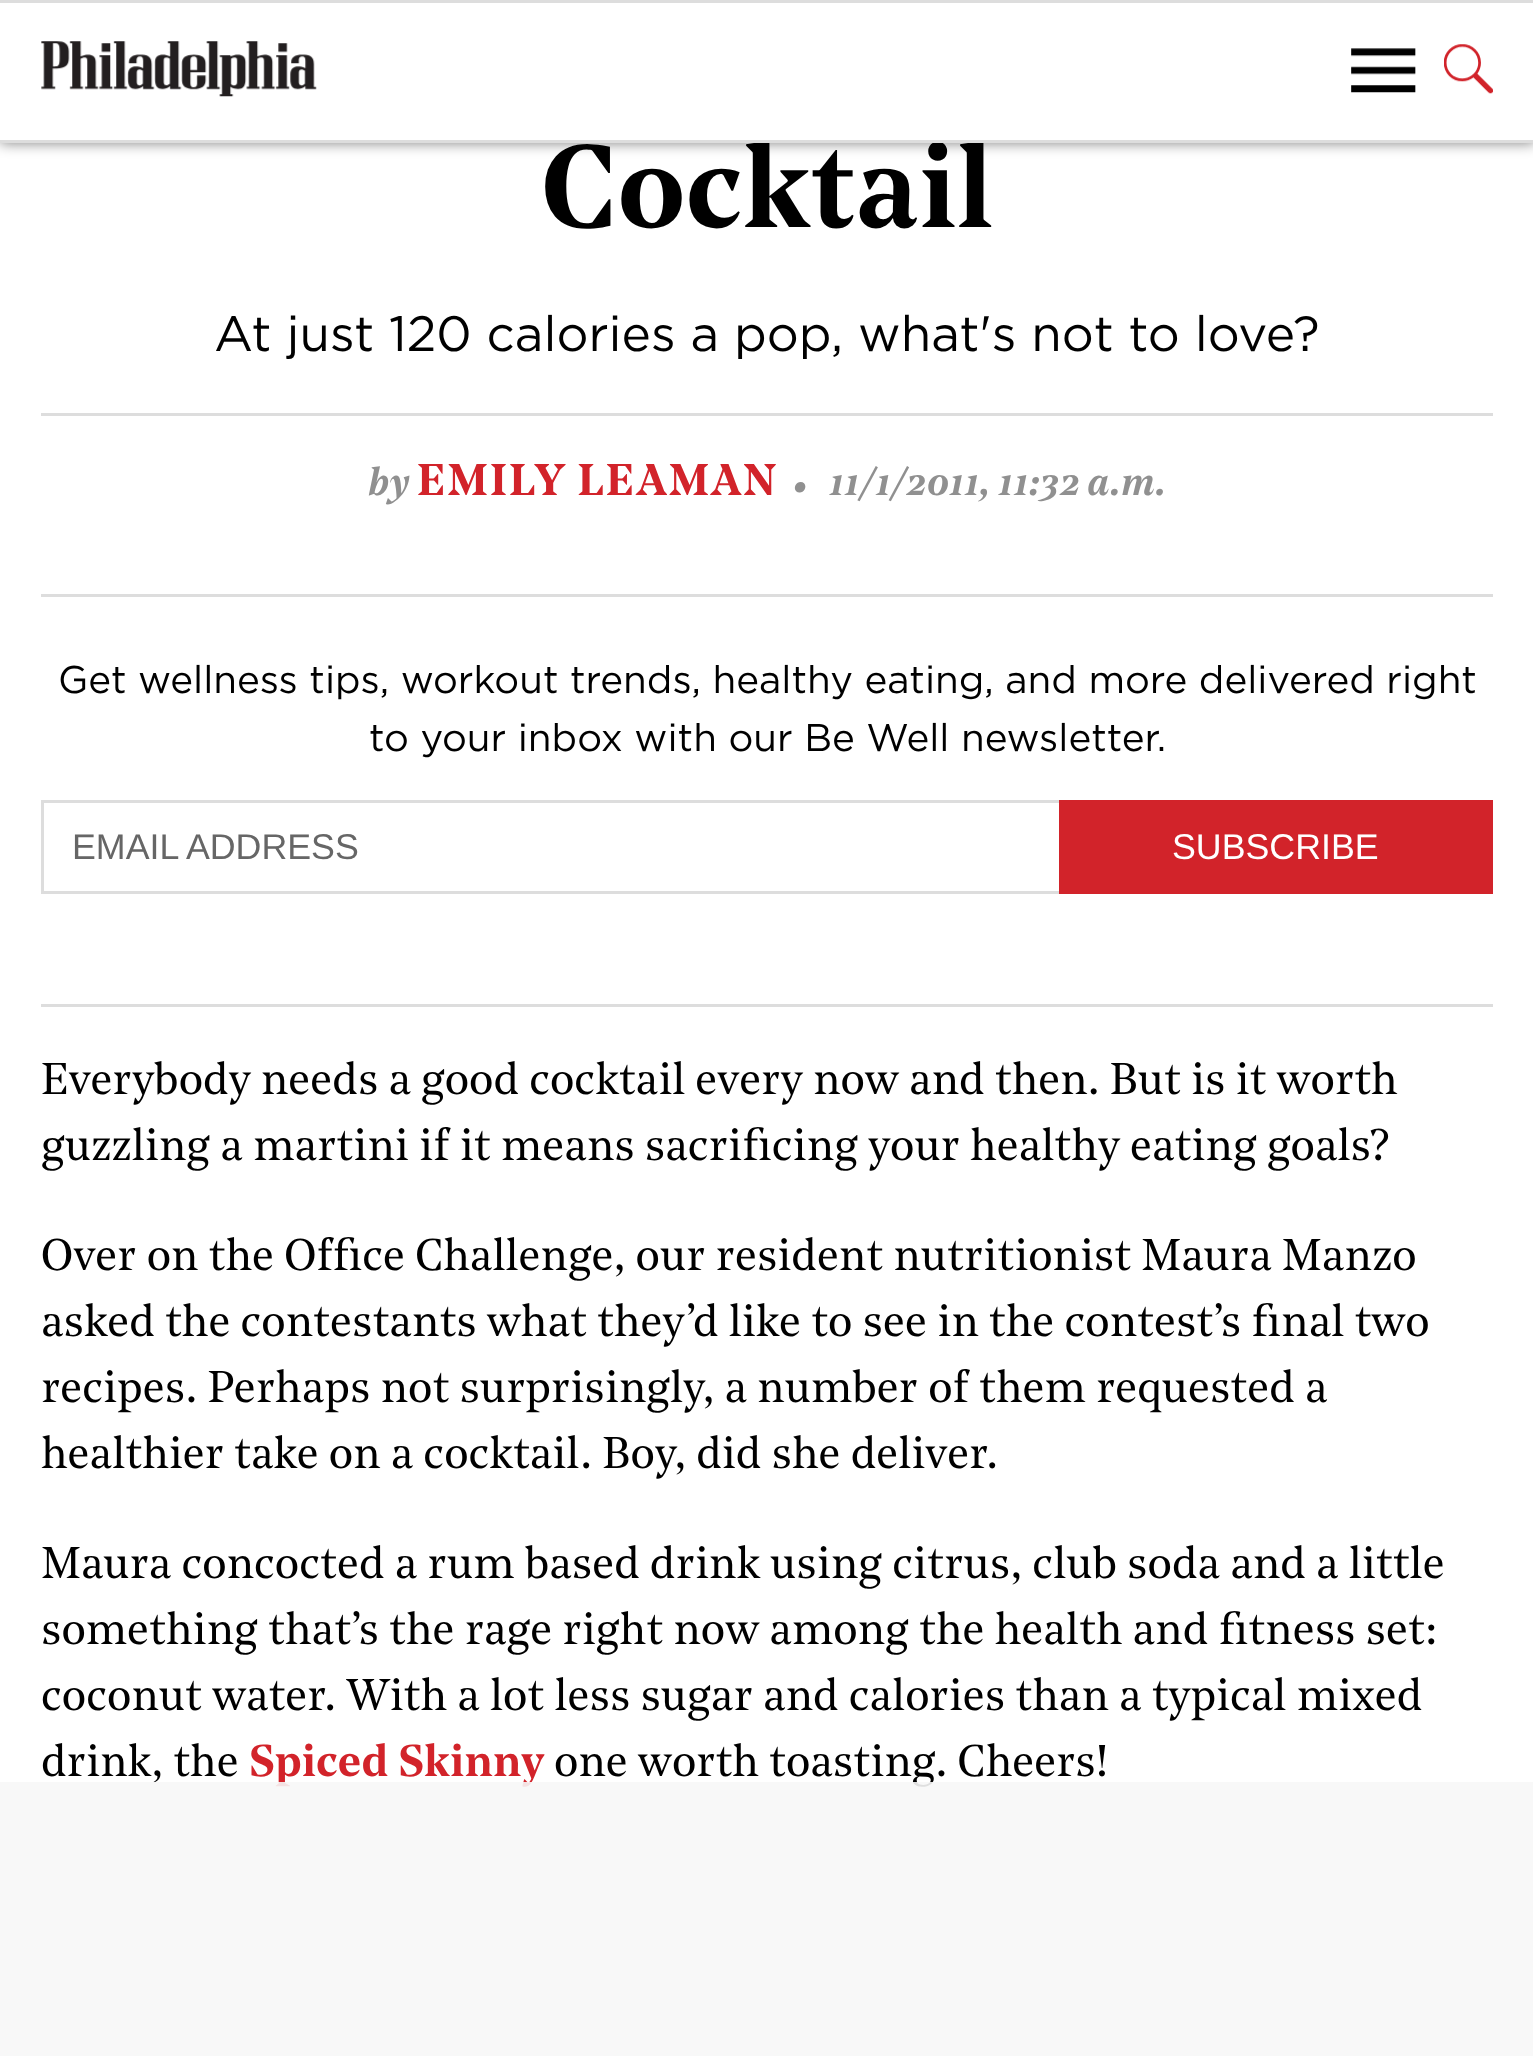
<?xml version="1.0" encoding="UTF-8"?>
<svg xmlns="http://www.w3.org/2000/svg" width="1533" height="2056">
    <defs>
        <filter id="blur1" x="-50%" y="-200%" width="200%" height="500%"><feGaussianBlur stdDeviation="7"/></filter>
    </defs>
    <rect width="100%" height="100%" fill="#FFFFFF"/>
    <rect x="0" y="0" width="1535" height="143" fill="#000000" fill-opacity="0.5" filter="url(#blur1)"/>
    <rect x="0" y="3" width="1533" height="137" fill="#FFFFFF"/>
    <rect x="0" y="0" width="1533" height="3" fill="#DDDDDD"/>
    <text x="541" y="227" font-family="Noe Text" font-size="115.5" font-weight="600" fill="#000000">Cocktail</text>
    <rect x="0" y="140" width="1533" height="3" fill="#DDDDDD"/>
    <image x="41" y="41" width="276" height="56" href="img_01.png"/>
    <image x="1351" y="48" width="65" height="45" href="img_02.png"/>
    <image x="1444" y="44" width="49" height="50" href="img_03.png"/>
    <text x="214" y="351" font-family="Gotham" font-size="49.5" fill="#000000">At just 120 calories a pop, what's not to love?</text>
    <rect x="41" y="413" width="1452" height="3" fill="#DDDDDD"/>
    <rect x="41" y="594" width="1452" height="3" fill="#DDDDDD"/>
    <text x="368" y="495" font-family="Noe Text" font-size="38.5" font-weight="600" font-style="italic" fill="#909090">by</text>
    <text x="417" y="495" font-family="Noe Text" font-size="44" font-weight="600" letter-spacing="1.75" fill="#D2232A">EMILY LEAMAN</text>
    <text x="791" y="505" font-family="Noe Text" font-size="60" font-weight="600" font-style="italic" fill="#909090">·</text>
    <text x="829" y="495" font-family="Noe Text" font-size="38.5" font-weight="600" font-style="italic" fill="#909090">11/1/2011, 11:32 a.m.</text>
    <rect x="41" y="1004" width="1452" height="3" fill="#DDDDDD"/>
    <text x="58" y="693" font-family="Gotham" font-size="38.5" fill="#000000">Get wellness tips, workout trends, healthy eating, and more delivered right</text>
    <text x="369" y="751" font-family="Gotham" font-size="38.5" fill="#000000">to your inbox with our Be Well newsletter.</text>
    <rect x="42.5" y="801.5" width="1449" height="91" fill="none" stroke="#DDDDDD" stroke-width="3"/>
    <text x="72" y="859" font-family="Liberation Sans" font-size="35.75" fill="#666666">EMAIL ADDRESS</text>
    <rect x="1059" y="800" width="434" height="94" fill="#D2232A"/>
    <text x="1172" y="859" font-family="Liberation Sans" font-size="35.75" fill="#FFFFFF">SUBSCRIBE</text>
    <text font-family="Noe Text" font-size="44" fill="#000000">
        <tspan x="41" y="1094">Everybody needs a good cocktail every now and then. But is it worth</tspan>
        <tspan x="41" y="1160">guzzling a martini if it means sacrificing your healthy eating goals?</tspan>
    </text>
    <text font-family="Noe Text" font-size="44" fill="#000000">
        <tspan x="41" y="1270">Over on the Office Challenge, our resident nutritionist Maura Manzo</tspan>
        <tspan x="41" y="1336">asked the contestants what they’d like to see in the contest’s final two</tspan>
        <tspan x="41" y="1402">recipes. Perhaps not surprisingly, a number of them requested a</tspan>
        <tspan x="41" y="1468">healthier take on a cocktail. Boy, did she deliver.</tspan>
    </text>
    <text font-family="Noe Text" font-size="44" fill="#000000">
        <tspan x="41" y="1578">Maura concocted a rum based drink using citrus, club soda and a little</tspan>
        <tspan x="41" y="1644">something that’s the rage right now among the health and fitness set:</tspan>
        <tspan x="41" y="1710">coconut water. With a lot less sugar and calories than a typical mixed</tspan>
        <tspan x="41" y="1776">drink, the</tspan>
    </text>
    <text x="249" y="1776" font-family="Noe Text" font-size="44" font-weight="600" fill="#D2232A">Spiced Skinny</text>
    <text x="554" y="1776" font-family="Noe Text" font-size="44" fill="#000000">one worth toasting. Cheers!</text>
    <rect x="0" y="1782" width="1533" height="274" fill="#F7F7F7" fill-opacity="0.9"/>
</svg>
